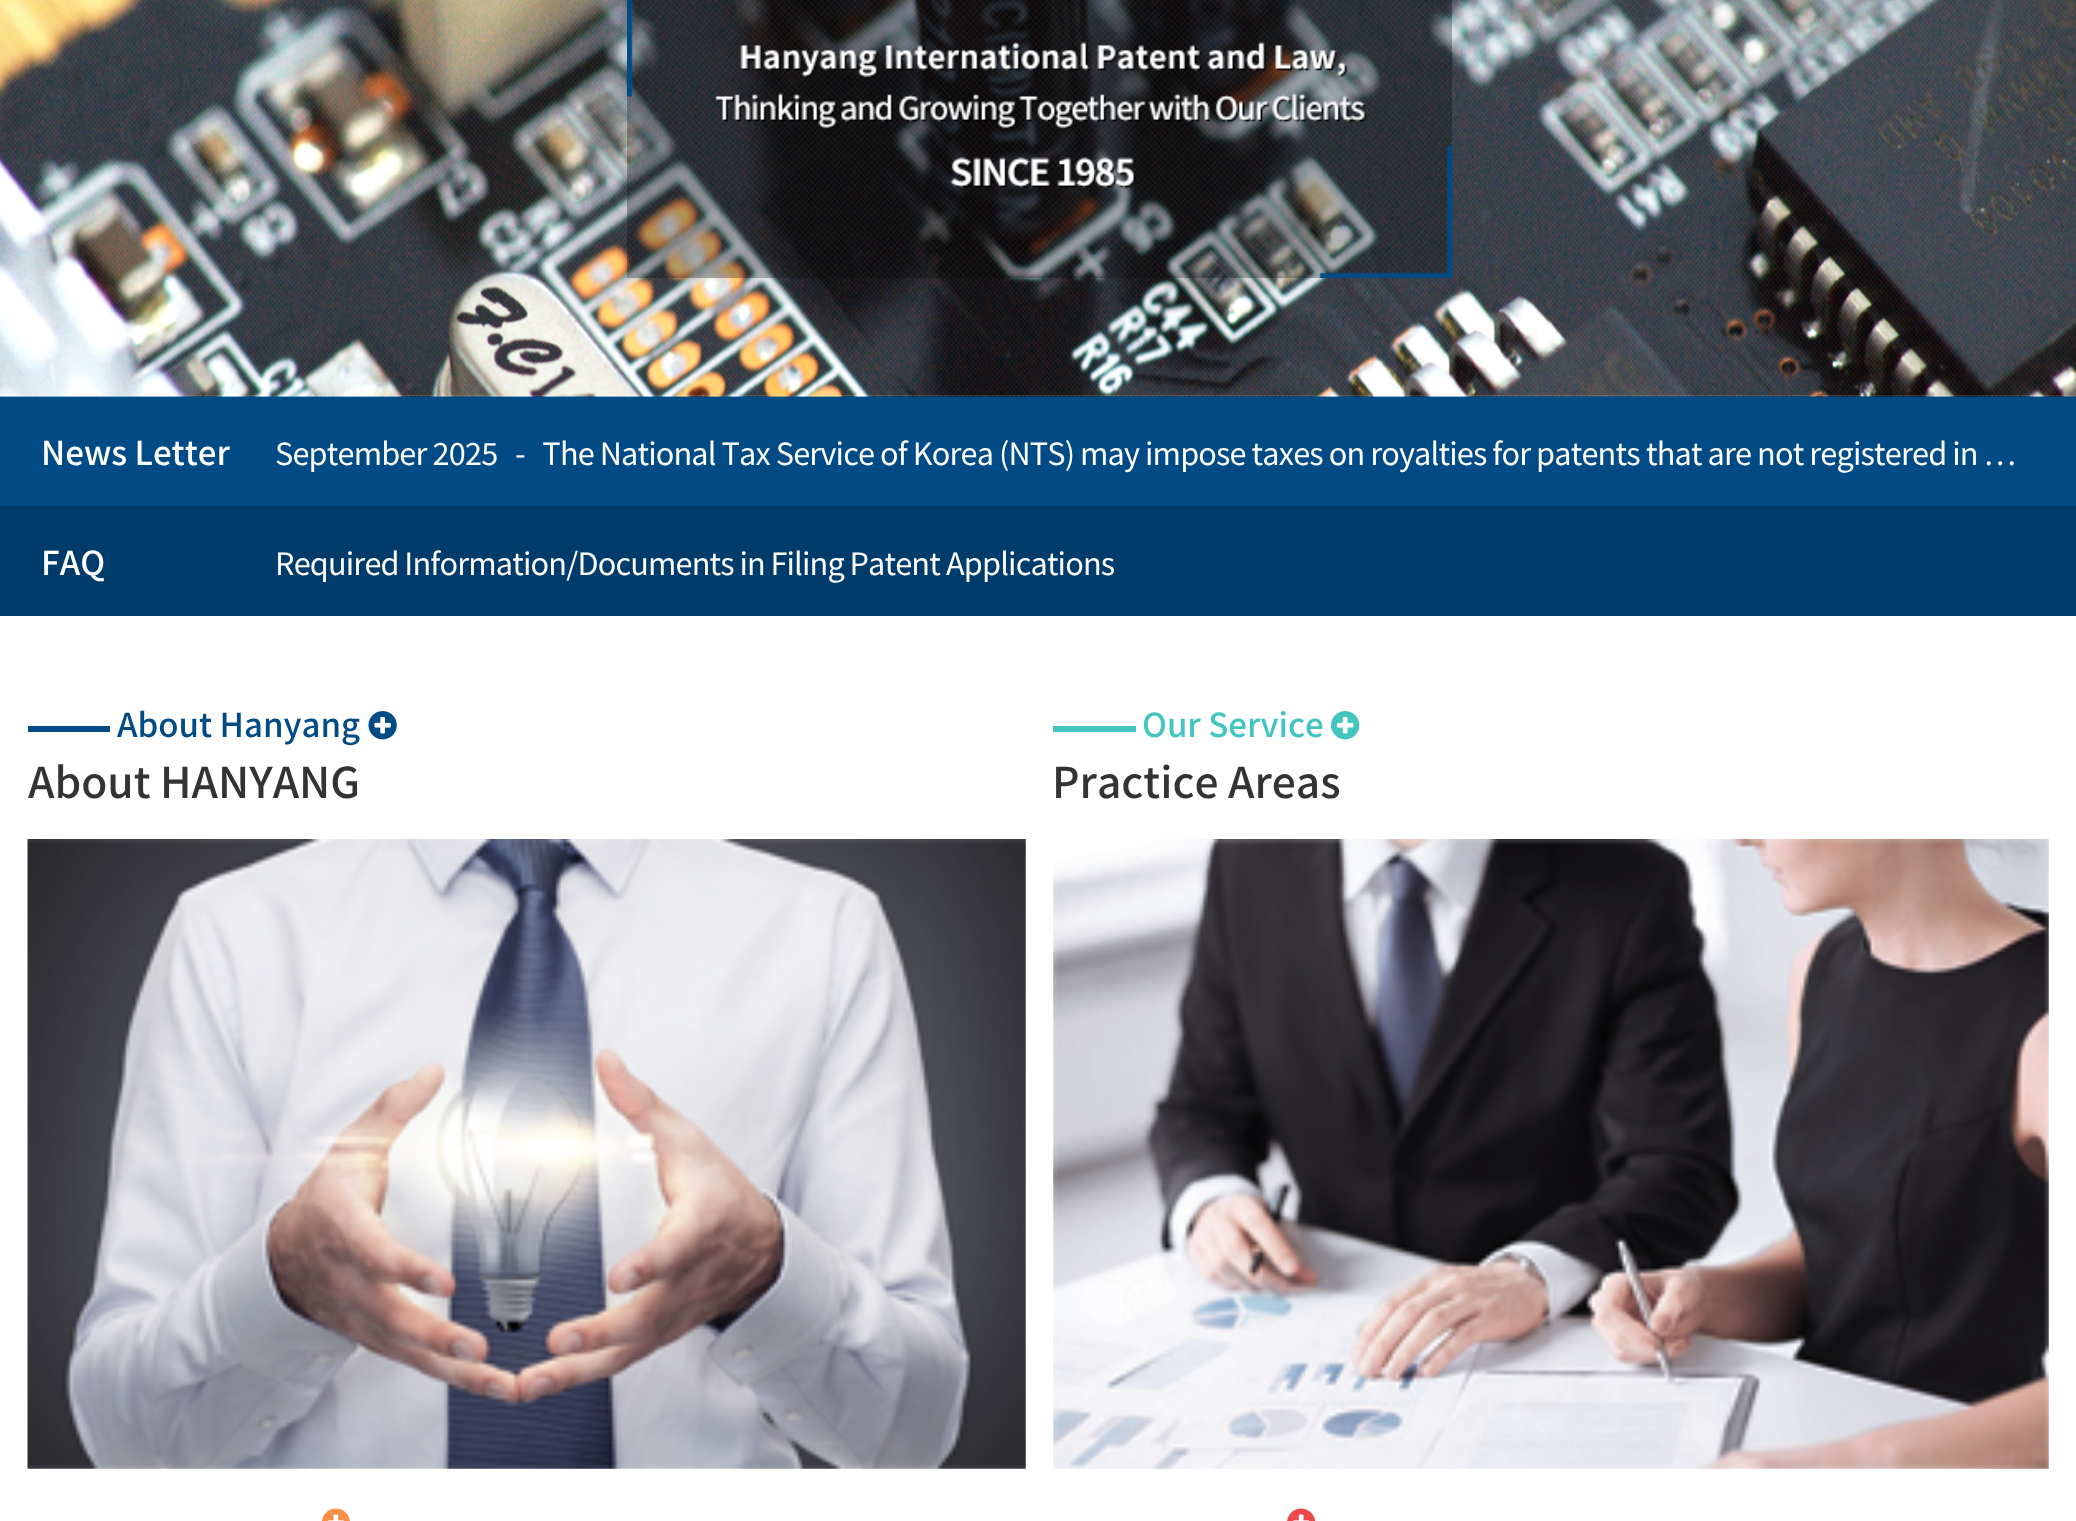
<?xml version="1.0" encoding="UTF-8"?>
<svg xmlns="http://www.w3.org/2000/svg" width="2076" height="1521">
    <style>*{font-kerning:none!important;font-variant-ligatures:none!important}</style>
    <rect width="100%" height="100%" fill="#FFFFFF"/>
    <rect x="0" y="396" width="2076" height="110" fill="#004B85"/>
    <image x="0" y="0" width="2076" height="397" href="img_01.png"/>
    <image x="627" y="0" width="825" height="278" href="img_02.png"/>
    <text x="41" y="465" font-family="Noto Sans KR" font-size="33" font-weight="500" fill="#FFFFFF">News Letter</text>
    <text x="275" y="465" font-family="Noto Sans KR" font-size="30.65" letter-spacing="-0.82" fill="#FFFFFF">September 2025</text>
    <text x="515" y="465" word-spacing="-0.2" font-family="Noto Sans KR" font-size="30.65" letter-spacing="-0.82" fill="#FFFFFF" xml:space="preserve">-   The National Tax Service of Korea (NTS)</text>
    <text x="1080" y="465" word-spacing="-0.2" font-family="Noto Sans KR" font-size="30.65" letter-spacing="-0.82" fill="#FFFFFF">may impose taxes on royalties for patents</text>
    <text x="1646" y="465" word-spacing="-0.2" font-family="Noto Sans KR" font-size="30.65" letter-spacing="-0.82" fill="#FFFFFF">that are not registered in …</text>
    <rect x="0" y="506" width="2076" height="110" fill="#003C6B"/>
    <text x="41" y="575" font-family="Noto Sans KR" font-size="33" font-weight="500" fill="#FFFFFF">FAQ</text>
    <text x="275" y="575" word-spacing="-0.5" font-family="Noto Sans KR" font-size="30.65" letter-spacing="-0.82" fill="#FFFFFF">Required Information/Documents in Filing Patent</text>
    <text x="946" y="575" word-spacing="-0.5" font-family="Noto Sans KR" font-size="30.65" letter-spacing="-0.82" fill="#FFFFFF">Applications</text>
    <rect x="28" y="726" width="82" height="6" fill="#004B85"/>
    <text x="117" y="737" font-family="Noto Sans KR" font-size="33" font-weight="500" fill="#004B85">About Hanyang</text>
    <image x="368" y="711" width="29" height="29" href="img_03.png"/>
    <text x="28" y="798" font-family="Noto Sans KR" font-size="42.5" font-weight="500" fill="#333333">About HANYANG</text>
    <image x="27" y="839" width="999" height="630" href="img_04.png"/>
    <rect x="1053" y="726" width="83" height="6" fill="#42C4BF"/>
    <text x="1142" y="737" font-family="Noto Sans KR" font-size="33" font-weight="500" fill="#42C4BF">Our Service</text>
    <image x="1331" y="711" width="29" height="29" href="img_05.png"/>
    <text x="1052" y="798" font-family="Noto Sans KR" font-size="42.5" font-weight="500" fill="#333333">Practice Areas</text>
    <image x="1053" y="839" width="996" height="630" href="img_06.png"/>
    <image x="321" y="1508" width="29" height="13" href="img_07.png"/>
    <image x="1287" y="1508" width="29" height="13" href="img_08.png"/>
</svg>
